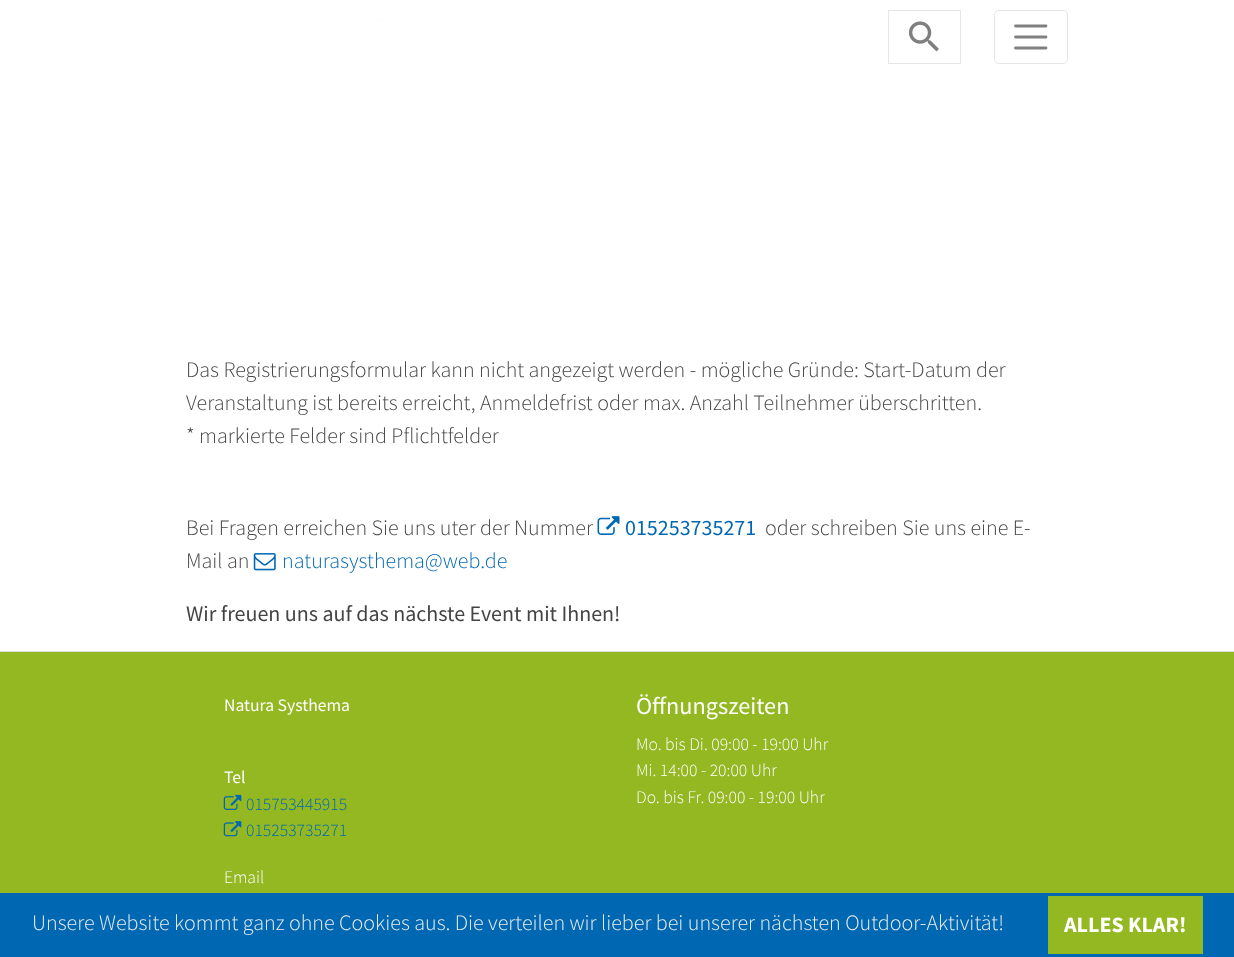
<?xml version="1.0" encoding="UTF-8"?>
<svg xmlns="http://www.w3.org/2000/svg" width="1234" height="957">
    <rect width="100%" height="100%" fill="#FFFFFF"/>
    <rect x="379" y="19" width="8" height="2" fill="#FEFDF9"/>
    <rect x="888.5" y="10.5" width="72" height="53" fill="none" stroke="#E6E6E6"/>
    <image x="908" y="21" width="31" height="31" href="img_01.png"/>
    <rect x="994.5" y="10.5" width="73" height="53" rx="4.5" fill="none" stroke="#E6E6E6"/>
    <path d="M 1015.5 26 H 1046 M 1015.5 37 H 1046 M 1015.5 48 H 1046" fill="none" stroke="#808080" stroke-width="2.8" stroke-linecap="round"/>
    <text font-family="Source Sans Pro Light" font-size="22" font-weight="300" fill="#444444">
        <tspan x="186" y="377">Das Registrierungsformular kann nicht angezeigt werden - mögliche Gründe: Start-Datum der</tspan>
        <tspan x="186" y="410">Veranstaltung ist bereits erreicht, Anmeldefrist oder max. Anzahl Teilnehmer überschritten.</tspan>
        <tspan x="186" y="443">* markierte Felder sind Pflichtfelder</tspan>
    </text>
    <text x="186" y="535" font-family="Source Sans Pro Light" font-size="22" font-weight="300" fill="#444444">Bei Fragen erreichen Sie uns uter der Nummer</text>
    <image x="597" y="516" width="23" height="19" href="img_02.png"/>
    <text x="625" y="535" font-family="Source Sans Pro" font-size="22" fill="#0068B3">015253735271</text>
    <text x="765" y="535" font-family="Source Sans Pro Light" font-size="22" font-weight="300" fill="#444444">oder schreiben Sie uns eine E-</text>
    <text x="186" y="568" font-family="Source Sans Pro Light" font-size="22" font-weight="300" fill="#444444">Mail an</text>
    <image x="253" y="553" width="23" height="18" href="img_03.png"/>
    <text x="282" y="568" font-family="Source Sans Pro Light" font-size="22" font-weight="300" fill="#0068B3">naturasysthema@web.de</text>
    <text x="186" y="621" font-family="Source Sans Pro" font-size="22" fill="#444444">Wir freuen uns auf das nächste Event mit Ihnen!</text>
    <rect x="0" y="652" width="1234" height="241" fill="#93B822"/>
    <rect x="0" y="651" width="1234" height="1" fill="#DDDDDD"/>
    <text x="224" y="711" font-family="Source Sans Pro" font-size="17.6" fill="#FFFFFF">Natura Systhema</text>
    <text x="224" y="783" font-family="Source Sans Pro" font-size="17.6" fill="#FFFFFF">Tel</text>
    <image x="223" y="794" width="19" height="16" href="img_04.png"/>
    <text x="246" y="810" font-family="Source Sans Pro Light" font-size="17.6" font-weight="300" fill="#0068B3">015753445915</text>
    <image x="223" y="821" width="19" height="16" href="img_05.png"/>
    <text x="246" y="836" font-family="Source Sans Pro Light" font-size="17.6" font-weight="300" fill="#0068B3">015253735271</text>
    <text x="224" y="883" font-family="Source Sans Pro Light" font-size="17.6" font-weight="300" fill="#FFFFFF">Email</text>
    <text x="636" y="714" font-family="Source Sans Pro" font-size="24.25" fill="#FFFFFF">Öffnungszeiten</text>
    <text font-family="Source Sans Pro Light" font-size="17.6" font-weight="300" fill="#FFFFFF">
        <tspan x="636" y="750">Mo. bis Di. 09:00 - 19:00 Uhr</tspan>
        <tspan x="636" y="776">Mi. 14:00 - 20:00 Uhr</tspan>
        <tspan x="636" y="803">Do. bis Fr. 09:00 - 19:00 Uhr</tspan>
    </text>
    <rect x="0" y="893" width="1234" height="64" fill="#0068B3"/>
    <text x="32" y="930" font-family="Source Sans Pro Light" font-size="22" font-weight="300" fill="#EEEEEE">Unsere Website kommt ganz ohne Cookies aus. Die verteilen wir lieber bei unserer nächsten Outdoor-Aktivität!</text>
    <rect x="1048" y="896" width="155" height="58" fill="#93B822"/>
    <text x="1064" y="932" font-family="Source Sans Pro" font-size="22" font-weight="700" fill="#FFFFFF">ALLES KLAR!</text>
</svg>
